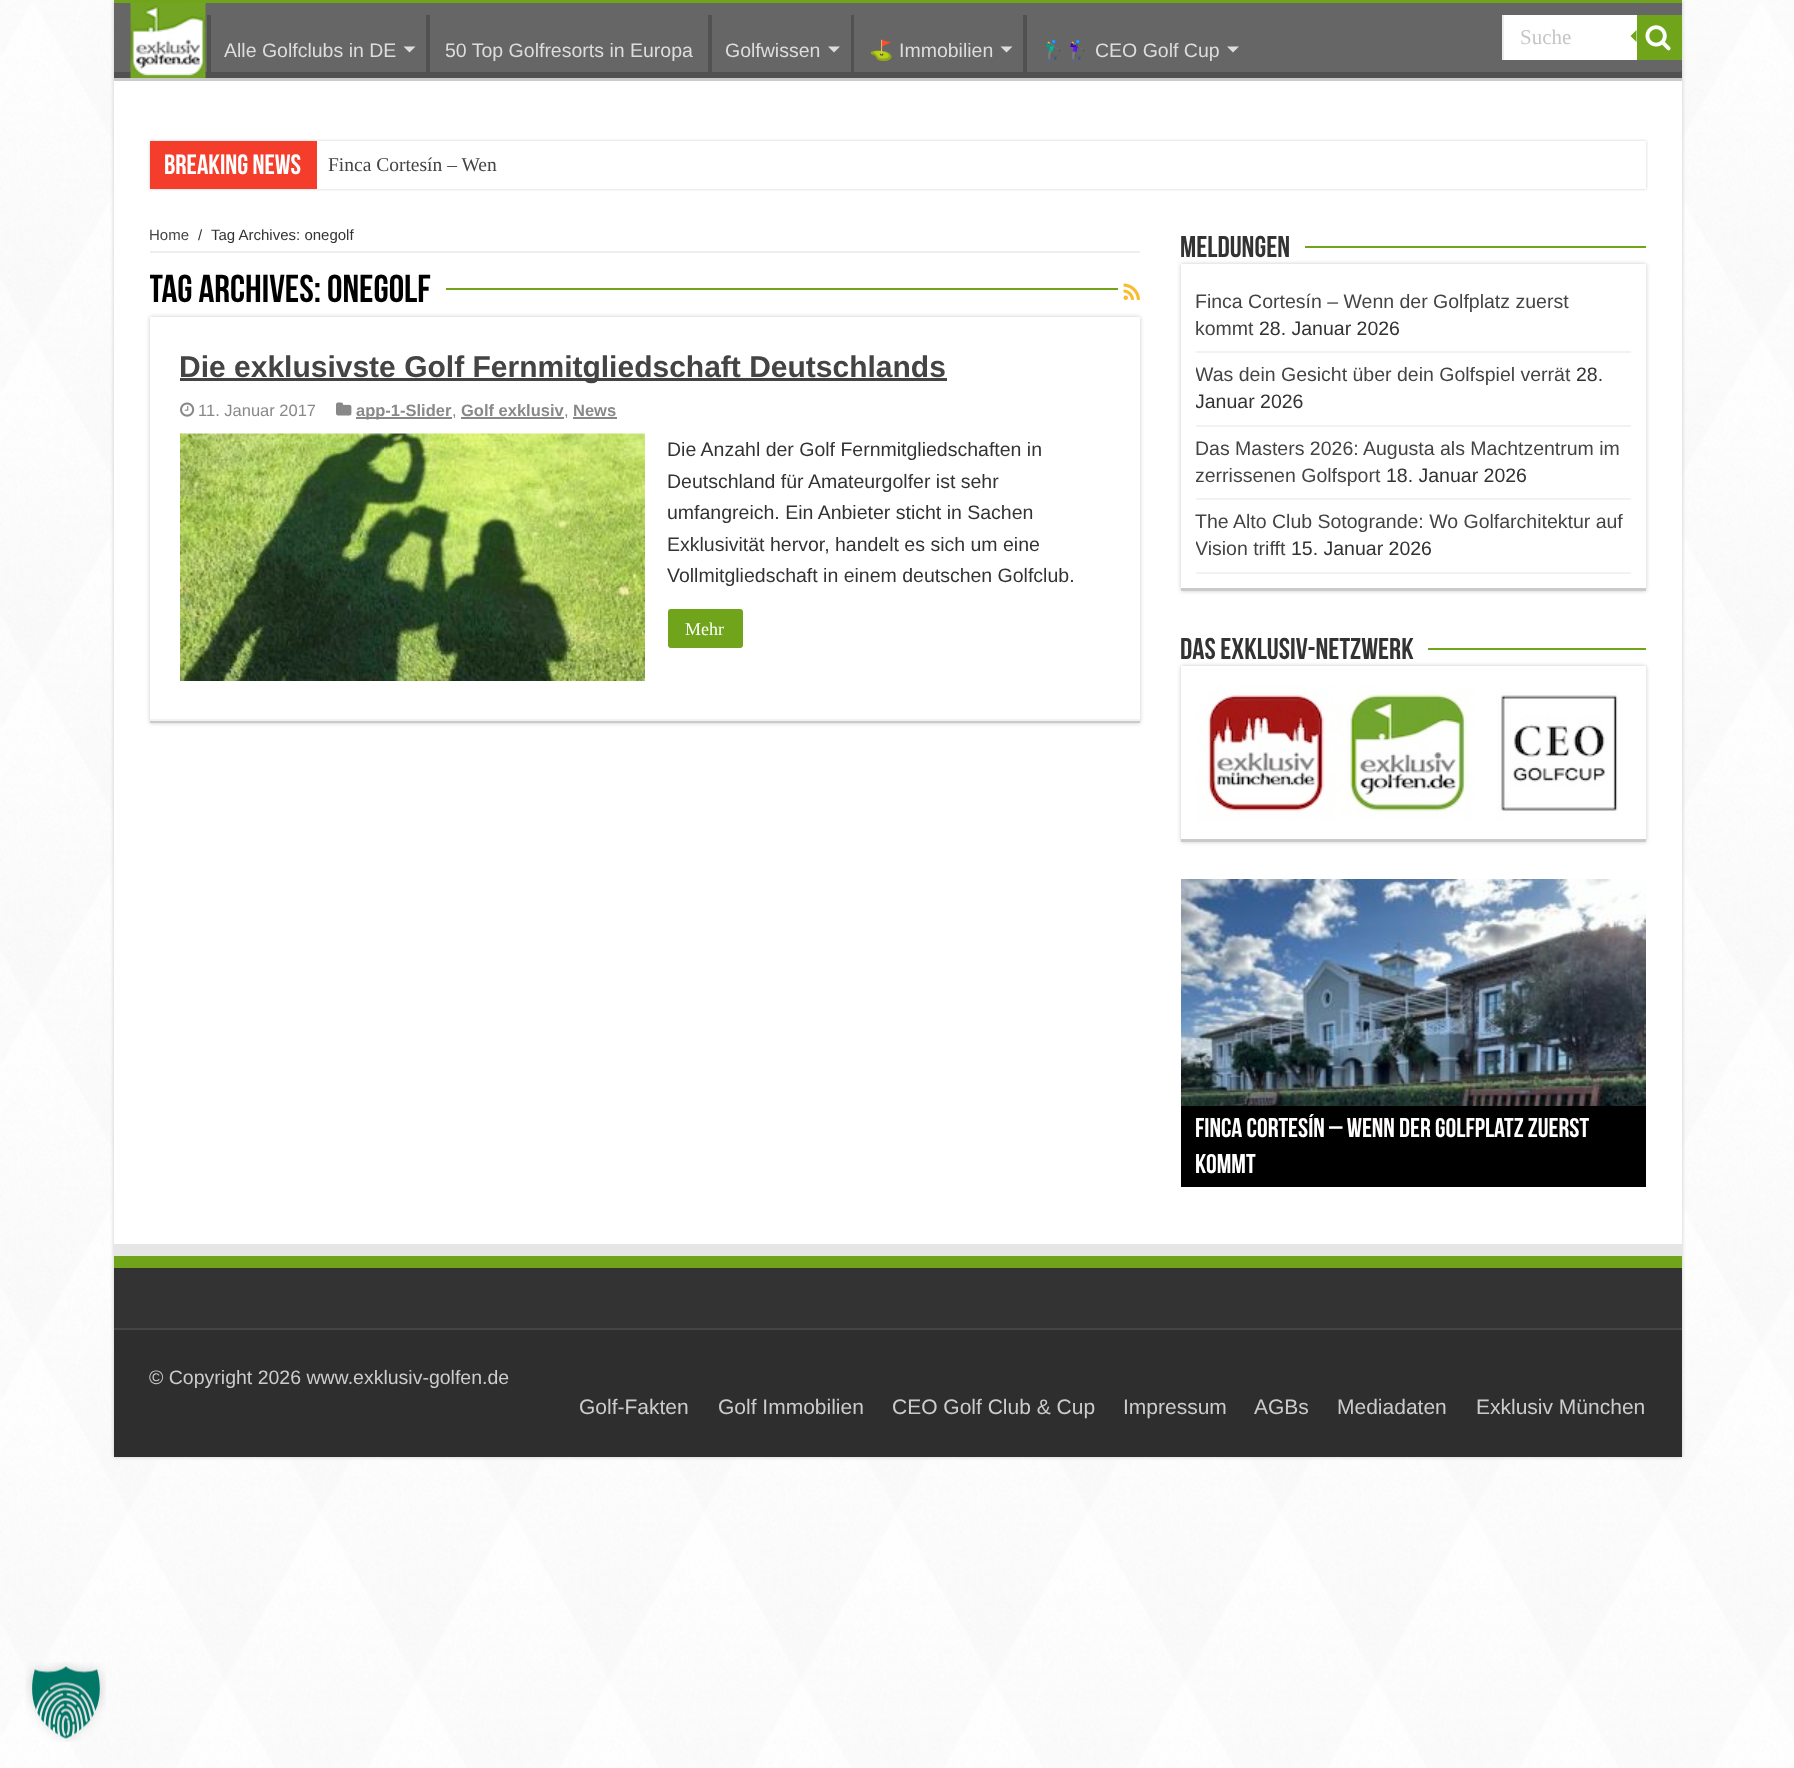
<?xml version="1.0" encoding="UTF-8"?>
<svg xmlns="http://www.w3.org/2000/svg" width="1794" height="1768">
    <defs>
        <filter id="blur1" x="-50%" y="-200%" width="200%" height="500%"><feGaussianBlur stdDeviation="2"/></filter>
        <clipPath id="clip1"><rect x="114" y="3" width="1568" height="75"/></clipPath>
        <filter id="blur2" x="-50%" y="-200%" width="200%" height="500%"><feGaussianBlur stdDeviation="1.5"/></filter>
        <clipPath id="clip2"><rect x="150" y="267" width="990" height="50"/></clipPath>
        <clipPath id="clip3"><path d="M 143 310 H 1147 V 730 H 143 Z M 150 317 H 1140 V 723 H 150 Z" clip-rule="evenodd"/></clipPath>
        <clipPath id="clip4"><rect x="1196" y="353" width="435" height="72"/></clipPath>
        <clipPath id="clip5"><rect x="1196" y="426" width="435" height="72"/></clipPath>
        <clipPath id="clip6"><rect x="1196" y="500" width="435" height="72"/></clipPath>
    </defs>
    <rect width="100%" height="100%" fill="#FFFFFF"/>
    <image x="0" y="0" width="1794" height="1768" href="img_01.png"/>
    <rect x="114" y="0" width="1568" height="1457" fill="#CACACA" filter="url(#blur1)"/>
    <rect x="114" y="81" width="1568" height="1163" fill="#FFFFFF"/>
    <rect x="114" y="0" width="1568" height="3" fill="#70A51B"/>
    <rect x="114" y="3" width="1568" height="69" fill="#666666"/>
    <rect x="1504" y="15" width="133" height="45" fill="#FFFFFF"/>
    <rect x="1502" y="15" width="2" height="45" fill="#ECECEC"/>
    <text x="1520" y="44" font-family="Liberation Serif" font-size="21" fill="#C5C5C5">Suche</text>
    <rect x="1637" y="15" width="45" height="45" fill="#70A51B"/>
    <image x="1645" y="25" width="26" height="26" href="img_02.png"/>
    <path d="M 1636.5 30 V 42 L 1630.5 36 Z" fill="#70A51B"/>
    <g clip-path="url(#clip1)">
        <path d="M -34 -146 H 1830 V 226 H -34 Z M 112 -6 H 1680 C 1681 -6 1682 -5 1682 -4 V 70 C 1682 71 1681 72 1680 72 H 112 C 112 72 111 71 111 70 V -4 C 111 -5 112 -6 112 -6 Z" fill="#515152" fill-rule="evenodd"/>
    </g>
    <rect x="114" y="78" width="1568" height="3" fill="#CACACA"/>
    <image x="130" y="3" width="76" height="75" href="img_03.png"/>
    <rect x="207" y="15" width="4" height="63" fill="#515152"/>
    <text x="224" y="57" font-family="Liberation Sans" font-size="19.5" fill="#DDDDDD">Alle Golfclubs in DE</text>
    <path d="M 403.5 46.5 H 415.5 L 409.5 52.5 Z" fill="#DDDDDD"/>
    <rect x="426" y="15" width="4" height="63" fill="#515152"/>
    <text x="445" y="57" font-family="Liberation Sans" font-size="19.5" fill="#DDDDDD">50 Top Golfresorts in Europa</text>
    <rect x="708" y="15" width="4" height="63" fill="#515152"/>
    <text x="725" y="57" font-family="Liberation Sans" font-size="19.5" fill="#DDDDDD">Golfwissen</text>
    <path d="M 828 46.5 H 840 L 834 52.5 Z" fill="#DDDDDD"/>
    <rect x="851" y="15" width="3" height="63" fill="#515152"/>
    <text x="869" y="57" font-family="Noto Color Emoji" font-size="19.5" fill="#DDDDDD">⛳️</text>
    <text x="899" y="57" font-family="Liberation Sans" font-size="19.5" fill="#DDDDDD">Immobilien</text>
    <path d="M 1000.5 46.5 H 1012.5 L 1006.5 52.5 Z" fill="#DDDDDD"/>
    <rect x="1023" y="15" width="4" height="63" fill="#515152"/>
    <text x="1041" y="57" font-family="Noto Color Emoji" font-size="19.5" fill="#DDDDDD">🏌️‍♂️🏌️‍♀️</text>
    <text x="1095" y="57" font-family="Liberation Sans" font-size="19.5" fill="#DDDDDD">CEO Golf Cup</text>
    <path d="M 1227 46.5 H 1239 L 1233 52.5 Z" fill="#DDDDDD"/>
    <rect x="150" y="141" width="1496" height="48" fill="#CACACA" filter="url(#blur2)"/>
    <rect x="317" y="141" width="1329" height="48" fill="#FFFFFF"/>
    <rect x="150" y="141" width="167" height="48" fill="#F43D2A"/>
    <text x="164" y="174" font-family="Bebas Neue" font-size="28" font-weight="700" fill="#FFFFFF">Breaking News</text>
    <text x="328" y="171" font-family="Liberation Serif" font-size="19.5" fill="#444444">Finca Cortesín – Wen</text>
    <rect x="150" y="251" width="990" height="2" fill="#EEEEEE"/>
    <text x="149" y="240" font-family="Liberation Sans" font-size="15" fill="#444444">Home</text>
    <text x="198" y="240" font-family="Liberation Sans" font-size="15" fill="#333333">/</text>
    <text x="211" y="240" font-family="Liberation Sans" font-size="15" fill="#333333">Tag Archives: onegolf</text>
    <g clip-path="url(#clip2)">
        <text x="149" y="302" font-family="Bebas Neue" font-size="39" font-weight="700" fill="#000000">Tag Archives:</text>
    </g>
    <text x="327" y="302" font-family="Bebas Neue" font-size="39" font-weight="700" fill="#000000">onegolf</text>
    <rect x="446" y="288" width="672" height="2" fill="#70A51B"/>
    <image x="1123" y="283" width="17" height="17" href="img_04.png"/>
    <g clip-path="url(#clip3)">
        <rect x="150" y="317" width="990" height="406" fill="#CACACA" filter="url(#blur1)"/>
    </g>
    <rect x="150" y="721" width="990" height="2" fill="#CACACA"/>
    <rect x="150" y="719" width="990" height="2" fill="#F2F2F2"/>
    <rect x="180" y="378" width="767" height="3" fill="#444444"/>
    <text x="179" y="377" font-family="Liberation Sans" font-size="30" font-weight="700" fill="#444444">Die exklusivste Golf Fernmitgliedschaft Deutschlands</text>
    <image x="180" y="402" width="15" height="15" href="img_05.png"/>
    <text x="198" y="416" font-family="Liberation Sans" font-size="16.5" fill="#888888">11. Januar 2017</text>
    <image x="336" y="402" width="16" height="14" href="img_06.png"/>
    <rect x="356" y="417" width="96" height="2" fill="#888888"/>
    <text x="356" y="416" font-family="Liberation Sans" font-size="16.5" font-weight="700" fill="#888888">app-1-Slider</text>
    <text x="452" y="416" font-family="Liberation Sans" font-size="16.5" fill="#888888">,</text>
    <text x="461" y="416" font-family="Liberation Sans" font-size="16.5" font-weight="700" fill="#888888">Golf exklusiv</text>
    <rect x="461" y="417" width="103" height="2" fill="#888888"/>
    <text x="564" y="416" font-family="Liberation Sans" font-size="16.5" fill="#888888">,</text>
    <text x="573" y="416" font-family="Liberation Sans" font-size="16.5" font-weight="700" fill="#888888">News</text>
    <rect x="573" y="417" width="44" height="2" fill="#888888"/>
    <image x="180" y="433" width="465" height="248" href="img_07.png"/>
    <text font-family="Liberation Sans" font-size="19.5" fill="#333333">
        <tspan x="667" y="456">Die Anzahl der Golf Fernmitgliedschaften in</tspan>
        <tspan x="667" y="488">Deutschland für Amateurgolfer ist sehr</tspan>
        <tspan x="667" y="519">umfangreich. Ein Anbieter sticht in Sachen</tspan>
        <tspan x="667" y="551">Exklusivität hervor, handelt es sich um eine</tspan>
        <tspan x="667" y="582">Vollmitgliedschaft in einem deutschen Golfclub.</tspan>
    </text>
    <rect x="668" y="609" width="75" height="39" rx="3" fill="#70A51B"/>
    <text x="685" y="635" font-family="Liberation Serif" font-size="18" fill="#FFFFFF">Mehr</text>
    <rect x="1181" y="264" width="465" height="327" fill="#CACACA" filter="url(#blur1)"/>
    <text x="1180" y="257" font-family="Bebas Neue" font-size="30" font-weight="700" fill="#333333">Meldungen</text>
    <rect x="1305" y="246" width="341" height="2" fill="#70A51B"/>
    <rect x="1181" y="264" width="465" height="324" fill="#FFFFFF"/>
    <rect x="1181" y="588" width="465" height="3" fill="#CACACA"/>
    <rect x="1196" y="351" width="435" height="2" fill="#F2F2F2"/>
    <text font-family="Liberation Sans" font-size="19.5" fill="#444444">
        <tspan x="1195" y="308">Finca Cortesín – Wenn der Golfplatz zuerst</tspan>
        <tspan x="1195" y="335">kommt</tspan>
    </text>
    <text x="1259" y="335" font-family="Liberation Sans" font-size="19.5" fill="#333333">28. Januar 2026</text>
    <rect x="1196" y="425" width="435" height="2" fill="#F2F2F2"/>
    <g clip-path="url(#clip4)">
        <text x="1195" y="381" font-family="Liberation Sans" font-size="19.5" fill="#444444">Was dein Gesicht über dein Golfspiel verrät</text>
    </g>
    <text x="1576" y="381" font-family="Liberation Sans" font-size="19.5" fill="#333333">28.</text>
    <g clip-path="url(#clip4)">
        <text x="1195" y="408" font-family="Liberation Sans" font-size="19.5" fill="#333333">Januar 2026</text>
    </g>
    <rect x="1196" y="498" width="435" height="2" fill="#F2F2F2"/>
    <text x="1195" y="455" font-family="Liberation Sans" font-size="19.5" fill="#444444">Das Masters 2026: Augusta als Machtzentrum im</text>
    <g clip-path="url(#clip5)">
        <text x="1195" y="482" font-family="Liberation Sans" font-size="19.5" fill="#444444">zerrissenen Golfsport</text>
    </g>
    <text x="1386" y="482" font-family="Liberation Sans" font-size="19.5" fill="#333333">18. Januar 2026</text>
    <rect x="1196" y="572" width="435" height="2" fill="#F2F2F2"/>
    <text x="1195" y="528" font-family="Liberation Sans" font-size="19.5" fill="#444444">The Alto Club Sotogrande: Wo Golfarchitektur auf</text>
    <g clip-path="url(#clip6)">
        <text x="1195" y="555" font-family="Liberation Sans" font-size="19.5" fill="#444444">Vision trifft</text>
    </g>
    <text x="1291" y="555" font-family="Liberation Sans" font-size="19.5" fill="#333333">15. Januar 2026</text>
    <rect x="1181" y="666" width="465" height="176" fill="#CACACA" filter="url(#blur1)"/>
    <text x="1180" y="659" font-family="Bebas Neue" font-size="30" font-weight="700" fill="#333333">Das Exklusiv-Netzwerk</text>
    <rect x="1428" y="648" width="218" height="2" fill="#70A51B"/>
    <rect x="1181" y="666" width="465" height="173" fill="#FFFFFF"/>
    <rect x="1181" y="839" width="465" height="3" fill="#CACACA"/>
    <image x="1196" y="685" width="422" height="136" href="img_08.png"/>
    <image x="1181" y="879" width="465" height="227" href="img_09.png"/>
    <rect x="1181" y="1106" width="465" height="81" fill="#000000"/>
    <text font-family="Bebas Neue" font-size="27" font-weight="700" fill="#FFFFFF">
        <tspan x="1195" y="1137">Finca Cortesín – Wenn der Golfplatz zuerst</tspan>
        <tspan x="1195" y="1173">kommt</tspan>
    </text>
    <path d="M 114 1244 V 1256 H 1682 V 1316 V 1244 Z" fill="#E6E6E6"/>
    <rect x="114" y="1268" width="1568" height="60" fill="#333333"/>
    <rect x="114" y="1256" width="1568" height="12" fill="#70A51B"/>
    <rect x="114" y="1330" width="1568" height="127" fill="#2E2E2E"/>
    <rect x="114" y="1328" width="1568" height="2" fill="#444444"/>
    <text x="149" y="1384" font-family="Liberation Sans" font-size="19.5" fill="#CCCCCC">© Copyright 2026 www.exklusiv-golfen.de</text>
    <text x="579" y="1414" font-family="Liberation Sans" font-size="21" fill="#CCCCCC">Golf-Fakten</text>
    <text x="718" y="1414" font-family="Liberation Sans" font-size="21" fill="#CCCCCC">Golf Immobilien</text>
    <text x="892" y="1414" font-family="Liberation Sans" font-size="21" fill="#CCCCCC">CEO Golf Club &amp; Cup</text>
    <text x="1123" y="1414" font-family="Liberation Sans" font-size="21" fill="#CCCCCC">Impressum</text>
    <text x="1254" y="1414" font-family="Liberation Sans" font-size="21" fill="#CCCCCC">AGBs</text>
    <text x="1337" y="1414" font-family="Liberation Sans" font-size="21" fill="#CCCCCC">Mediadaten</text>
    <text x="1476" y="1414" font-family="Liberation Sans" font-size="21" fill="#CCCCCC">Exklusiv München</text>
    <image x="25" y="1662" width="81" height="80" href="img_10.png"/>
</svg>
